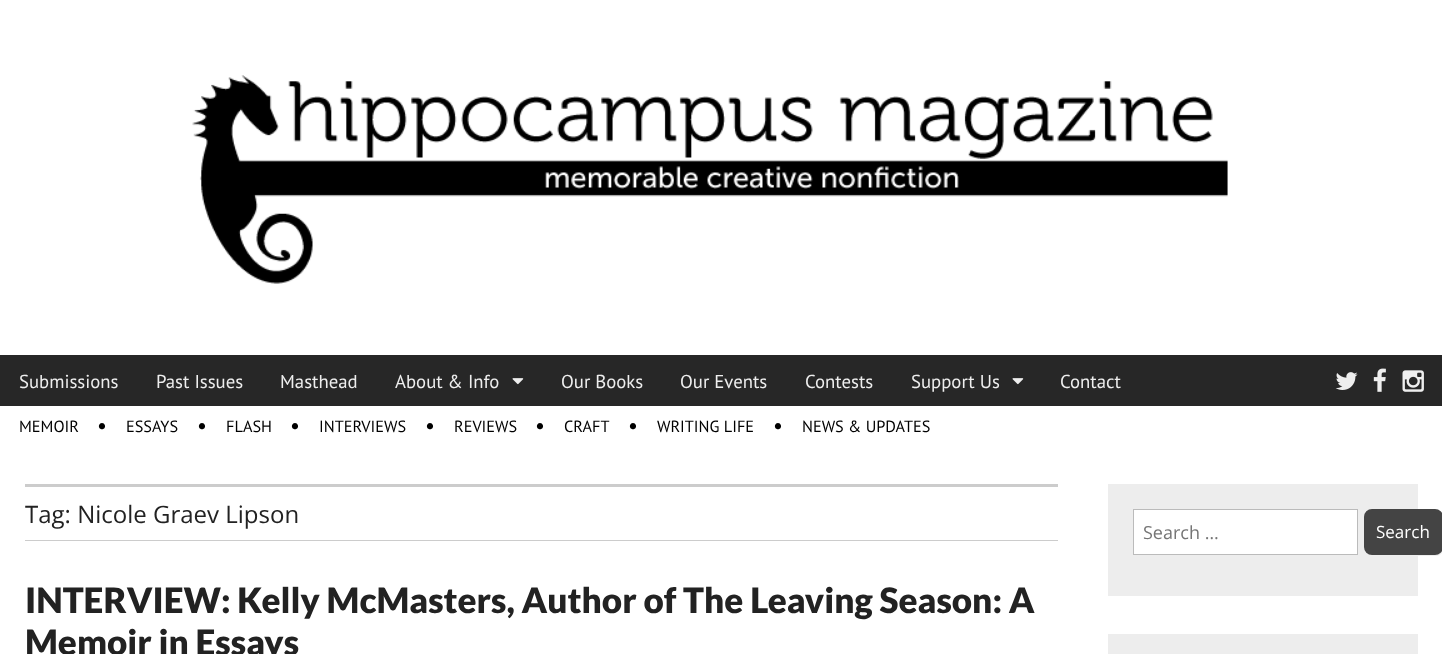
<?xml version="1.0" encoding="UTF-8"?>
<svg xmlns="http://www.w3.org/2000/svg" width="1442" height="654">
    <rect width="100%" height="100%" fill="#FFFFFF"/>
    <image x="192" y="75" width="1036" height="209" href="img_01.png"/>
    <rect x="0" y="355" width="1442" height="51" fill="#272727"/>
    <text x="19" y="388" font-family="PT Sans" font-size="18.75" fill="#EEEEEE">Submissions</text>
    <text x="156" y="388" font-family="PT Sans" font-size="18.75" fill="#EEEEEE">Past Issues</text>
    <text x="280" y="388" font-family="PT Sans" font-size="18.75" fill="#EEEEEE">Masthead</text>
    <text x="395" y="388" font-family="PT Sans" font-size="18.75" fill="#EEEEEE">About &amp; Info</text>
    <image x="512" y="378" width="12" height="7" href="img_02.png"/>
    <text x="561" y="388" font-family="PT Sans" font-size="18.75" fill="#EEEEEE">Our Books</text>
    <text x="680" y="388" font-family="PT Sans" font-size="18.75" fill="#EEEEEE">Our Events</text>
    <text x="805" y="388" font-family="PT Sans" font-size="18.75" fill="#EEEEEE">Contests</text>
    <text x="911" y="388" font-family="PT Sans" font-size="18.75" fill="#EEEEEE">Support Us</text>
    <image x="1012" y="378" width="12" height="7" href="img_02.png"/>
    <text x="1060" y="388" font-family="PT Sans" font-size="18.75" fill="#EEEEEE">Contact</text>
    <image x="1335" y="372" width="23" height="18" href="img_03.png"/>
    <image x="1373" y="368" width="13" height="24" href="img_04.png"/>
    <image x="1402" y="370" width="22" height="22" href="img_05.png"/>
    <text x="19" y="432" font-family="PT Sans" font-size="16.25" fill="#000000">MEMOIR</text>
    <text x="97" y="433" font-family="PT Sans" font-size="22" fill="#000000">•</text>
    <text x="126" y="432" font-family="PT Sans" font-size="16.25" fill="#000000">ESSAYS</text>
    <text x="197" y="433" font-family="PT Sans" font-size="22" fill="#000000">•</text>
    <text x="226" y="432" font-family="PT Sans" font-size="16.25" fill="#000000">FLASH</text>
    <text x="290" y="433" font-family="PT Sans" font-size="22" fill="#000000">•</text>
    <text x="319" y="432" font-family="PT Sans" font-size="16.25" fill="#000000">INTERVIEWS</text>
    <text x="425" y="433" font-family="PT Sans" font-size="22" fill="#000000">•</text>
    <text x="454" y="432" font-family="PT Sans" font-size="16.25" fill="#000000">REVIEWS</text>
    <text x="535" y="433" font-family="PT Sans" font-size="22" fill="#000000">•</text>
    <text x="564" y="432" font-family="PT Sans" font-size="16.25" fill="#000000">CRAFT</text>
    <text x="628" y="433" font-family="PT Sans" font-size="22" fill="#000000">•</text>
    <text x="657" y="432" font-family="PT Sans" font-size="16.25" fill="#000000">WRITING LIFE</text>
    <text x="773" y="433" font-family="PT Sans" font-size="22" fill="#000000">•</text>
    <text x="802" y="432" font-family="PT Sans" font-size="16.25" fill="#000000">NEWS &amp; UPDATES</text>
    <rect x="25" y="484" width="1033" height="3" fill="#CCCCCC"/>
    <rect x="25" y="540" width="1033" height="1" fill="#CCCCCC"/>
    <text x="25" y="523" font-family="Open Sans" font-size="24" fill="#222222">Tag: Nicole Graev Lipson</text>
    <text font-family="Lato" font-size="35" font-weight="900" fill="#222222">
        <tspan x="25" y="613">INTERVIEW: Kelly McMasters, Author of The Leaving Season: A</tspan>
        <tspan x="25" y="655">Memoir in Essays</tspan>
    </text>
    <rect x="1108" y="484" width="310" height="112" fill="#EDEDED"/>
    <rect x="1133.5" y="509.5" width="224" height="45" fill="#FFFFFF" stroke="#BBBBBB"/>
    <text x="1143" y="539" font-family="Open Sans" font-size="18" fill="#757575">Search …</text>
    <path d="M 1368 554 C 1369 555 1371 556 1373 556 H 1436 C 1440 556 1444 552 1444 548 V 518 C 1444 515 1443 513 1441 512 C 1442 513 1442 515 1442 516 V 548 C 1442 552 1439 555 1435 555 H 1371 Z" fill="#EEEEEE"/>
    <rect x="1364" y="509" width="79" height="46" rx="8" fill="#444444"/>
    <text x="1376" y="538" font-family="Open Sans" font-size="17" fill="#FFFFFF">Search</text>
    <rect x="1108" y="634" width="310" height="20" fill="#EDEDED"/>
</svg>
